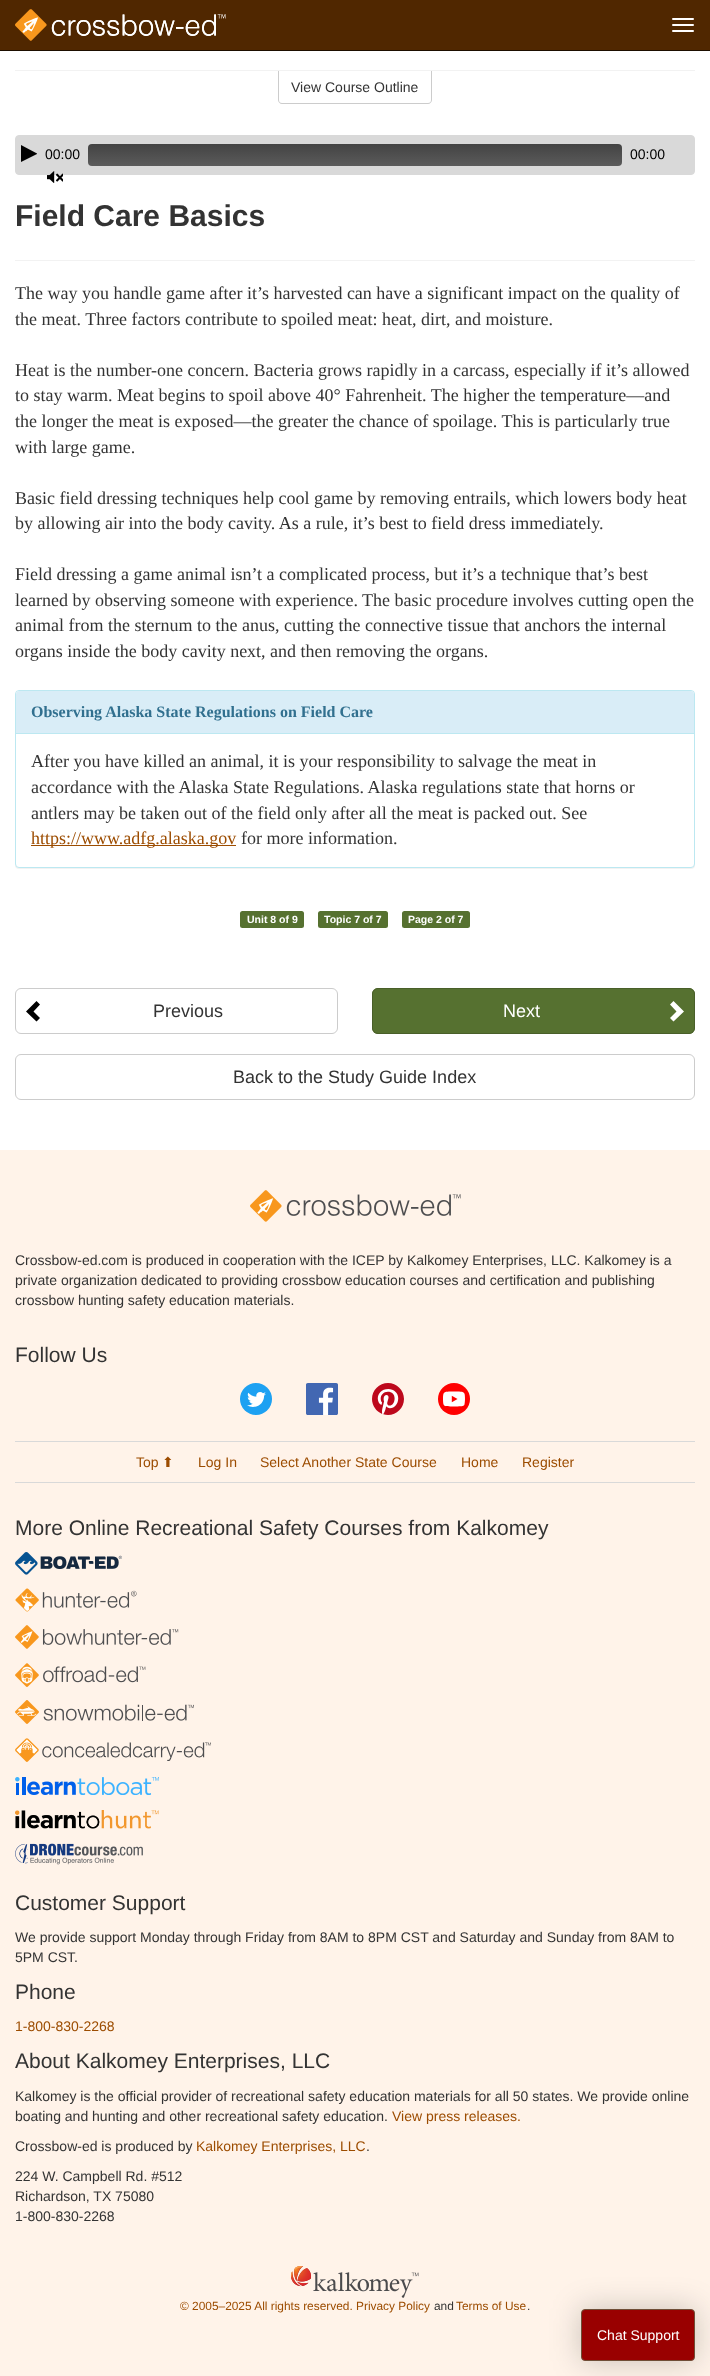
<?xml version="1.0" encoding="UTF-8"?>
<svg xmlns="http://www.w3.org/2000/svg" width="710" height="2376">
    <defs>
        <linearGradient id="g1" gradientUnits="userSpaceOnUse" x1="355" y1="144" x2="355" y2="166"><stop offset="0" stop-color="#434343"/><stop offset="1" stop-color="#5B5B5B"/></linearGradient>
        <filter id="blur1" x="-50%" y="-200%" width="200%" height="500%"><feGaussianBlur stdDeviation="0.5"/></filter>
        <filter id="blur2" x="-50%" y="-200%" width="200%" height="500%"><feGaussianBlur stdDeviation="15"/></filter>
    </defs>
    <rect width="100%" height="100%" fill="#FFF3E9"/>
    <rect x="0" y="0" width="710" height="50" fill="#502700"/>
    <rect x="0" y="50" width="710" height="1" fill="#1D0E00"/>
    <image x="15" y="9" width="211" height="32" href="img_01.png"/>
    <rect x="672" y="18" width="22" height="2" rx="1" fill="#FFFFFF"/>
    <rect x="672" y="24" width="22" height="2" rx="1" fill="#FFFFFF"/>
    <rect x="672" y="30" width="22" height="2" rx="1" fill="#FFFFFF"/>
    <rect x="0" y="51" width="710" height="1099" fill="#FFFFFF"/>
    <rect x="15" y="70" width="680" height="1" fill="#F2F2F2"/>
    <path d="M 278 71 H 432 V 100 C 432 102 430 104 428 104 H 282 C 280 104 278 102 278 100 Z M 279 71 H 431 V 100 C 431 102 430 103 428 103 H 282 C 280 103 279 102 279 100 Z" fill="#CCCCCC" fill-rule="evenodd"/>
    <text x="291" y="92" font-family="Liberation Sans" font-size="14" fill="#333333">View Course Outline</text>
    <rect x="15.5" y="135.5" width="679" height="39" rx="3.5" fill="#D9D9D9" stroke="#D9D9D9"/>
    <path d="M 37 154 L 21 162 V 145 L 37 153.5 Z" fill="#000000"/>
    <text x="45" y="159" font-family="Liberation Sans" font-size="14" fill="#000000">00:00</text>
    <rect x="88" y="144" width="534" height="22" rx="4" fill="url(#g1)"/>
    <text x="630" y="159" font-family="Liberation Sans" font-size="14" fill="#000000">00:00</text>
    <image x="47" y="171" width="16" height="12" href="img_02.png"/>
    <rect x="15" y="260" width="680" height="1" fill="#F2F2F2"/>
    <text x="15" y="226" font-family="Liberation Sans" font-size="30" font-weight="700" fill="#333333">Field Care Basics</text>
    <text font-family="Liberation Serif" font-size="18" fill="#333333">
        <tspan x="15" y="299">The way you handle game after it’s harvested can have a significant impact on the quality of</tspan>
        <tspan x="15" y="325">the meat. Three factors contribute to spoiled meat: heat, dirt, and moisture.</tspan>
    </text>
    <text font-family="Liberation Serif" font-size="18" fill="#333333">
        <tspan x="15" y="376">Heat is the number-one concern. Bacteria grows rapidly in a carcass, especially if it’s allowed</tspan>
        <tspan x="15" y="401">to stay warm. Meat begins to spoil above 40° Fahrenheit. The higher the temperature—and</tspan>
        <tspan x="15" y="427">the longer the meat is exposed—the greater the chance of spoilage. This is particularly true</tspan>
        <tspan x="15" y="453">with large game.</tspan>
    </text>
    <text font-family="Liberation Serif" font-size="18" fill="#333333">
        <tspan x="15" y="504">Basic field dressing techniques help cool game by removing entrails, which lowers body heat</tspan>
        <tspan x="15" y="529">by allowing air into the body cavity. As a rule, it’s best to field dress immediately.</tspan>
    </text>
    <text font-family="Liberation Serif" font-size="18" fill="#333333">
        <tspan x="15" y="580">Field dressing a game animal isn’t a complicated process, but it’s a technique that’s best</tspan>
        <tspan x="15" y="606">learned by observing someone with experience. The basic procedure involves cutting open the</tspan>
        <tspan x="15" y="631">animal from the sternum to the anus, cutting the connective tissue that anchors the internal</tspan>
        <tspan x="15" y="657">organs inside the body cavity next, and then removing the organs.</tspan>
    </text>
    <rect x="15" y="691" width="680" height="178" rx="4" fill="#000000" fill-opacity="0.05" filter="url(#blur1)"/>
    <rect x="15.5" y="690.5" width="679" height="177" rx="3.5" fill="#FFFFFF" stroke="#BCE8F1"/>
    <path d="M 19 691 H 691 C 692.5 691 694 692.5 694 694 V 734 H 16 V 694 C 16 692.5 17.5 691 19 691 Z" fill="#D9EDF7"/>
    <rect x="16" y="733" width="678" height="1" fill="#BCE8F1"/>
    <text x="31" y="717" font-family="Liberation Serif" font-size="16" font-weight="700" fill="#31708F">Observing Alaska State Regulations on Field Care</text>
    <text font-family="Liberation Serif" font-size="18" fill="#333333">
        <tspan x="31" y="767">After you have killed an animal, it is your responsibility to salvage the meat in</tspan>
        <tspan x="31" y="793">accordance with the Alaska State Regulations. Alaska regulations state that horns or</tspan>
        <tspan x="31" y="819">antlers may be taken out of the field only after all the meat is packed out. See</tspan>
    </text>
    <rect x="31" y="845" width="205" height="1" fill="#9C4C00"/>
    <text x="31" y="844" font-family="Liberation Serif" font-size="18" fill="#9C4C00">https://www.adfg.alaska.gov</text>
    <text x="241" y="844" font-family="Liberation Serif" font-size="18" fill="#333333">for more information.</text>
    <rect x="240" y="911" width="64" height="17" rx="2.5" fill="#567130"/>
    <text x="247" y="923" font-family="Liberation Sans" font-size="10.5" font-weight="700" fill="#FFFFFF">Unit 8 of 9</text>
    <rect x="318" y="911" width="70" height="17" rx="2.5" fill="#567130"/>
    <text x="324" y="923" font-family="Liberation Sans" font-size="10.5" font-weight="700" fill="#FFFFFF">Topic 7 of 7</text>
    <rect x="402" y="911" width="68" height="17" rx="2.5" fill="#567130"/>
    <text x="408" y="923" font-family="Liberation Sans" font-size="10.5" font-weight="700" fill="#FFFFFF">Page 2 of 7</text>
    <path d="M 26 1011.5 L 36.5 1001 L 40 1004.5 L 33.5 1011.5 L 40 1018 L 36.5 1021.5 Z" fill="#000000"/>
    <rect x="15.5" y="988.5" width="322" height="45" rx="5.5" fill="none" stroke="#CCCCCC"/>
    <text x="153" y="1017" font-family="Liberation Sans" font-size="18" fill="#333333">Previous</text>
    <rect x="372" y="988" width="323" height="46" rx="6" fill="#567130"/>
    <path d="M 684 1011.5 L 673.5 1001 L 670 1004.5 L 676.5 1011.5 L 670 1018 L 673.5 1021.5 Z" fill="#FFFFFF"/>
    <rect x="372.5" y="988.5" width="322" height="45" rx="5.5" fill="none" stroke="#495F29"/>
    <text x="503" y="1017" font-family="Liberation Sans" font-size="18" fill="#FFFFFF">Next</text>
    <rect x="15.5" y="1054.5" width="679" height="45" rx="5.5" fill="none" stroke="#CCCCCC"/>
    <text x="233" y="1083" font-family="Liberation Sans" font-size="18" fill="#333333">Back to the Study Guide Index</text>
    <image x="250" y="1190" width="211" height="32" href="img_03.png"/>
    <text font-family="Liberation Sans" font-size="14" fill="#333333">
        <tspan x="15" y="1265">Crossbow-ed.com is produced in cooperation with the ICEP by Kalkomey Enterprises, LLC. Kalkomey is a</tspan>
        <tspan x="15" y="1285">private organization dedicated to providing crossbow education courses and certification and publishing</tspan>
        <tspan x="15" y="1305">crossbow hunting safety education materials.</tspan>
    </text>
    <text x="15" y="1362" font-family="Liberation Sans" font-size="21" fill="#333333">Follow Us</text>
    <image x="240" y="1383" width="32" height="32" href="img_04.png"/>
    <image x="306" y="1383" width="32" height="32" href="img_05.png"/>
    <image x="372" y="1383" width="32" height="32" href="img_06.png"/>
    <image x="438" y="1383" width="32" height="32" href="img_07.png"/>
    <rect x="15" y="1441" width="680" height="1" fill="#D9D9D9"/>
    <rect x="15" y="1482" width="680" height="1" fill="#D9D9D9"/>
    <text x="136" y="1467" font-family="Liberation Sans" font-size="14" fill="#9C4C00">Top</text>
    <text x="162" y="1467" font-family="DejaVu Sans" font-size="14" fill="#9C4C00">⬆</text>
    <text x="198" y="1467" font-family="Liberation Sans" font-size="14" fill="#9C4C00">Log In</text>
    <text x="260" y="1467" font-family="Liberation Sans" font-size="14" fill="#9C4C00">Select Another State Course</text>
    <text x="461" y="1467" font-family="Liberation Sans" font-size="14" fill="#9C4C00">Home</text>
    <text x="522" y="1467" font-family="Liberation Sans" font-size="14" fill="#9C4C00">Register</text>
    <text x="15" y="1535" font-family="Liberation Sans" font-size="21" fill="#333333">More Online Recreational Safety Courses from Kalkomey</text>
    <image x="15" y="1552" width="107" height="23" href="img_08.png"/>
    <image x="15" y="1588" width="122" height="24" href="img_09.png"/>
    <image x="15" y="1625" width="164" height="24" href="img_10.png"/>
    <image x="15" y="1663" width="131" height="24" href="img_11.png"/>
    <image x="15" y="1700" width="179" height="24" href="img_12.png"/>
    <image x="15" y="1738" width="196" height="24" href="img_13.png"/>
    <image x="15" y="1777" width="144" height="18" href="img_14.png"/>
    <image x="15" y="1810" width="144" height="19" href="img_15.png"/>
    <image x="15" y="1843" width="128" height="22" href="img_16.png"/>
    <text x="15" y="1910" font-family="Liberation Sans" font-size="21" fill="#333333">Customer Support</text>
    <text font-family="Liberation Sans" font-size="14" fill="#333333">
        <tspan x="15" y="1942">We provide support Monday through Friday from 8AM to 8PM CST and Saturday and Sunday from 8AM to</tspan>
        <tspan x="15" y="1962">5PM CST.</tspan>
    </text>
    <text x="15" y="1999" font-family="Liberation Sans" font-size="21" fill="#333333">Phone</text>
    <text x="15" y="2031" font-family="Liberation Sans" font-size="14" fill="#9C4C00">1-800-830-2268</text>
    <text x="15" y="2068" font-family="Liberation Sans" font-size="21" fill="#333333">About Kalkomey Enterprises, LLC</text>
    <text font-family="Liberation Sans" font-size="14" fill="#333333">
        <tspan x="15" y="2101">Kalkomey is the official provider of recreational safety education materials for all 50 states. We provide online</tspan>
        <tspan x="15" y="2121">boating and hunting and other recreational safety education.</tspan>
    </text>
    <text x="392" y="2121" font-family="Liberation Sans" font-size="14" fill="#9C4C00">View press releases.</text>
    <text x="15" y="2151" font-family="Liberation Sans" font-size="14" fill="#333333">Crossbow-ed is produced by</text>
    <text x="196" y="2151" font-family="Liberation Sans" font-size="14" fill="#9C4C00">Kalkomey Enterprises, LLC</text>
    <text x="366" y="2151" font-family="Liberation Sans" font-size="14" fill="#333333">.</text>
    <text font-family="Liberation Sans" font-size="14" fill="#333333">
        <tspan x="15" y="2181">224 W. Campbell Rd. #512</tspan>
        <tspan x="15" y="2201">Richardson, TX 75080</tspan>
        <tspan x="15" y="2221">1-800-830-2268</tspan>
    </text>
    <image x="291" y="2266" width="128" height="32" href="img_17.png"/>
    <text x="180" y="2310" font-family="Liberation Sans" font-size="11.9" fill="#9C4C00">© 2005–2025 All rights reserved. Privacy Policy</text>
    <text x="434" y="2310" font-family="Liberation Sans" font-size="11.9" fill="#333333">and</text>
    <text x="456" y="2310" font-family="Liberation Sans" font-size="11.9" fill="#9C4C00">Terms of Use</text>
    <text x="527" y="2310" font-family="Liberation Sans" font-size="11.9" fill="#333333">.</text>
    <rect x="580" y="2308" width="116" height="54" rx="5" fill="#000000" fill-opacity="0.2" filter="url(#blur2)"/>
    <rect x="581.5" y="2309.5" width="113" height="51" rx="3.5" fill="#990000" stroke="#6F4E37"/>
    <text x="597" y="2340" font-family="Liberation Sans" font-size="14" fill="#FFFFFF">Chat Support</text>
</svg>
